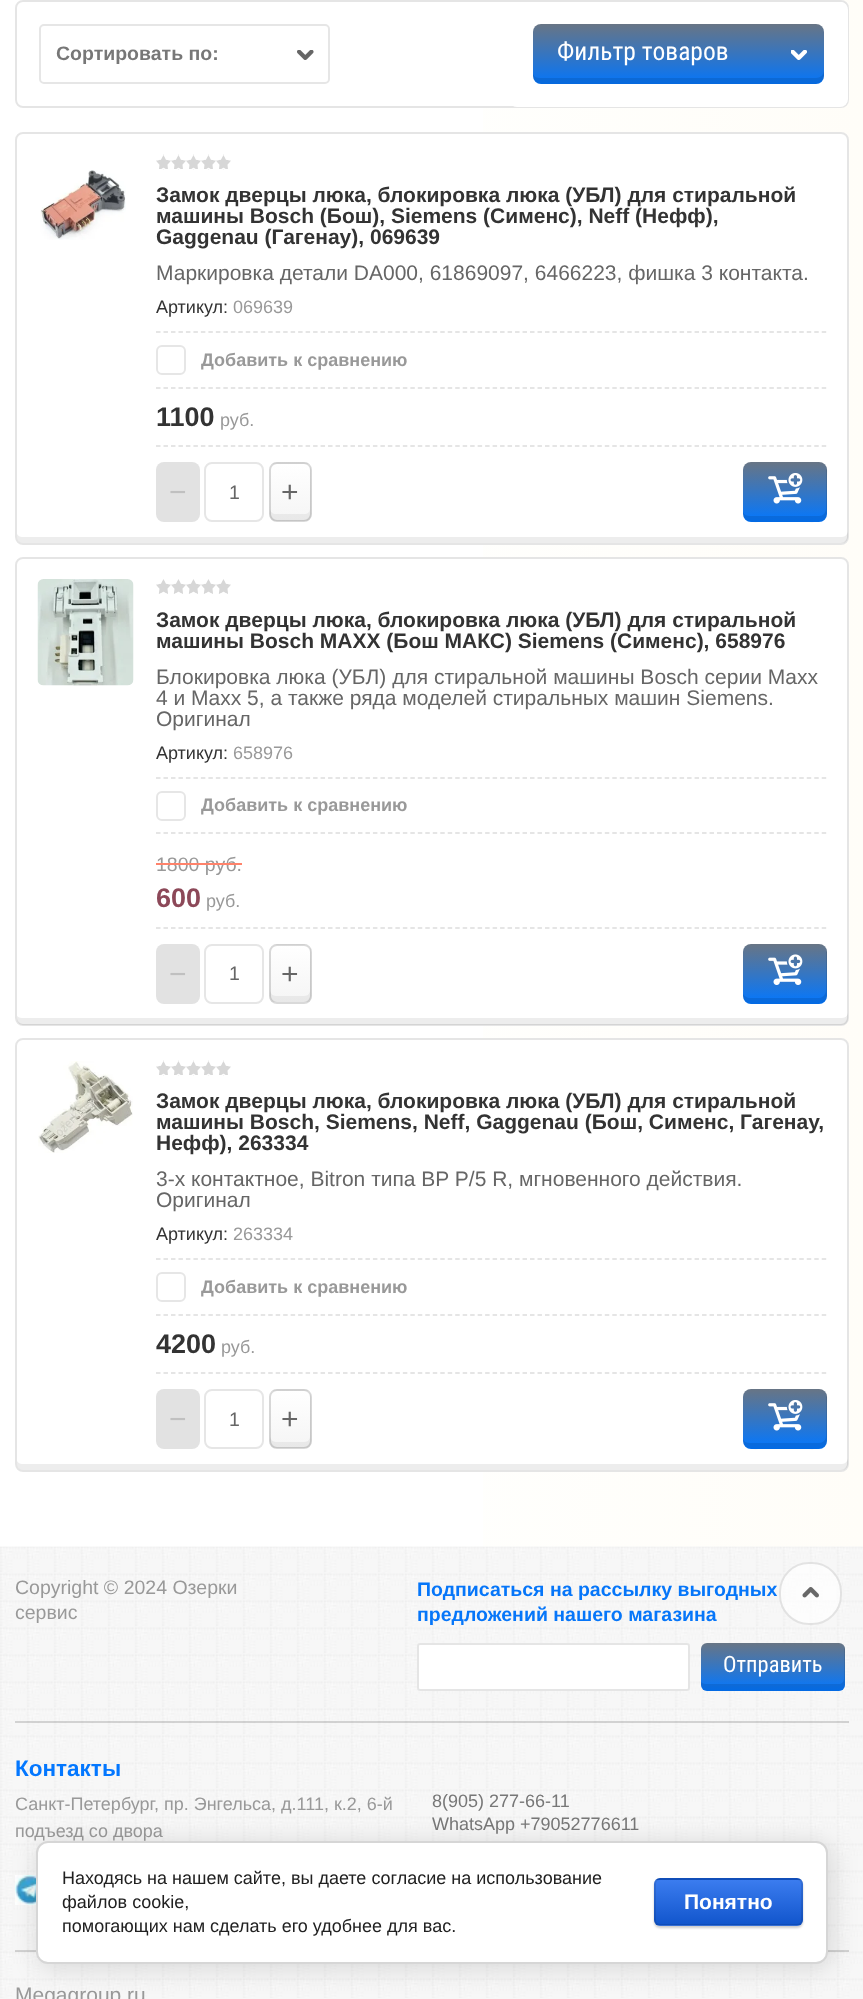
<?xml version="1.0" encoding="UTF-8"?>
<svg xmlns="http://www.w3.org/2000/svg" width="863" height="1999">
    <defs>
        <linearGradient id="g1" gradientUnits="userSpaceOnUse" x1="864" y1="664" x2="0" y2="664"><stop offset="0" stop-color="#FFFDF8"/><stop offset="0.49" stop-color="#FFFFFD"/><stop offset="0.5" stop-color="#FFFFFD"/><stop offset="1" stop-color="#FFFFFF"/></linearGradient>
        <linearGradient id="g2" gradientUnits="userSpaceOnUse" x1="678" y1="84" x2="678" y2="24"><stop offset="0" stop-color="#0575F9"/><stop offset="1" stop-color="#687585"/></linearGradient>
        <clipPath id="clip1"><rect x="269" y="462" width="43" height="60" rx="8"/></clipPath>
        <linearGradient id="g3" gradientUnits="userSpaceOnUse" x1="290" y1="464" x2="290" y2="407"><stop offset="0" stop-color="#F5F5F5"/><stop offset="1" stop-color="#FFFFFF"/></linearGradient>
        <linearGradient id="g4" gradientUnits="userSpaceOnUse" x1="290" y1="521" x2="290" y2="464"><stop offset="0" stop-color="#F5F5F5"/><stop offset="1" stop-color="#FFFFFF"/></linearGradient>
        <linearGradient id="g5" gradientUnits="userSpaceOnUse" x1="785" y1="522" x2="785" y2="462"><stop offset="0" stop-color="#0377FF"/><stop offset="1" stop-color="#687585"/></linearGradient>
        <clipPath id="clip2"><rect x="269" y="944" width="43" height="60" rx="8"/></clipPath>
        <linearGradient id="g6" gradientUnits="userSpaceOnUse" x1="290" y1="945" x2="290" y2="888"><stop offset="0" stop-color="#F5F5F5"/><stop offset="1" stop-color="#FFFFFF"/></linearGradient>
        <linearGradient id="g7" gradientUnits="userSpaceOnUse" x1="290" y1="1002" x2="290" y2="945"><stop offset="0" stop-color="#F5F5F5"/><stop offset="1" stop-color="#FFFFFF"/></linearGradient>
        <linearGradient id="g8" gradientUnits="userSpaceOnUse" x1="785" y1="1004" x2="785" y2="944"><stop offset="0" stop-color="#0377FF"/><stop offset="1" stop-color="#687585"/></linearGradient>
        <clipPath id="clip3"><rect x="269" y="1389" width="43" height="60" rx="8"/></clipPath>
        <linearGradient id="g9" gradientUnits="userSpaceOnUse" x1="290" y1="1391" x2="290" y2="1334"><stop offset="0" stop-color="#F5F5F5"/><stop offset="1" stop-color="#FFFFFF"/></linearGradient>
        <linearGradient id="g10" gradientUnits="userSpaceOnUse" x1="290" y1="1448" x2="290" y2="1391"><stop offset="0" stop-color="#F5F5F5"/><stop offset="1" stop-color="#FFFFFF"/></linearGradient>
        <linearGradient id="g11" gradientUnits="userSpaceOnUse" x1="785" y1="1449" x2="785" y2="1389"><stop offset="0" stop-color="#0377FF"/><stop offset="1" stop-color="#687585"/></linearGradient>
        <linearGradient id="g12" gradientUnits="userSpaceOnUse" x1="773" y1="1691" x2="773" y2="1643"><stop offset="0" stop-color="#0377FF"/><stop offset="1" stop-color="#687585"/></linearGradient>
        <filter id="blur1" x="-50%" y="-200%" width="200%" height="500%"><feGaussianBlur stdDeviation="13.5"/></filter>
        <filter id="blur2" x="-50%" y="-200%" width="200%" height="500%"><feGaussianBlur stdDeviation="1"/></filter>
        <clipPath id="clip4"><rect x="654" y="1878" width="149" height="48" rx="6"/></clipPath>
        <linearGradient id="g13" gradientUnits="userSpaceOnUse" x1="728" y1="1835" x2="728" y2="1880"><stop offset="0" stop-color="#3B7CEF"/><stop offset="1" stop-color="#1155CC"/></linearGradient>
        <linearGradient id="g14" gradientUnits="userSpaceOnUse" x1="728" y1="1880" x2="728" y2="1925"><stop offset="0" stop-color="#3B7CEF"/><stop offset="1" stop-color="#1155CC"/></linearGradient>
        <linearGradient id="g15" gradientUnits="userSpaceOnUse" x1="728" y1="1925" x2="728" y2="1970"><stop offset="0" stop-color="#3B7CEF"/><stop offset="1" stop-color="#1155CC"/></linearGradient>
    </defs>
    <rect width="100%" height="100%" fill="#FFFFFF"/>
    <rect x="483" y="0" width="380" height="1547" fill="url(#g1)"/>
    <rect x="15" y="0" width="834" height="108" rx="8" fill="#FFFFFF"/>
    <rect x="16" y="1" width="832" height="106" rx="7" fill="none" stroke="#000000" stroke-opacity="0.1" stroke-width="2"/>
    <rect x="40" y="25" width="289" height="58" rx="4" fill="none" stroke="#E6E6E6" stroke-width="2"/>
    <text x="56" y="60" font-family="Liberation Sans" font-size="19.5" font-weight="700" fill="#777777">Сортировать по:</text>
    <image x="297" y="50" width="17" height="10" href="img_01.png"/>
    <rect x="509" y="2" width="339" height="105" rx="8" fill="#FFFFFF"/>
    <rect x="533" y="24" width="291" height="60" rx="8" fill="url(#g2)"/>
    <path d="M 533 74 V 76 C 533 80 537 84 541 84 H 816 C 820 84 824 80 824 76 V 70 C 824 75 820 78 816 78 H 540 C 537 78 534 77 533 74 Z" fill="#000000" fill-opacity="0.1"/>
    <text x="557" y="60" font-family="Roboto Condensed" font-size="25.5" fill="#FFFFFF">Фильтр товаров</text>
    <image x="791" y="50" width="16" height="10" href="img_02.png"/>
    <rect x="15" y="132" width="834" height="413" rx="8" fill="#FFFFFF"/>
    <path d="M 17 534 V 537 C 17 540 20 543 23 543 H 842 C 845 543 848 540 848 537 V 531 C 848 534 845 537 842 537 H 22 C 20 537 18 536 17 534 Z" fill="#EDEDED"/>
    <rect x="16" y="133" width="832" height="411" rx="7" fill="none" stroke="#000000" stroke-opacity="0.1" stroke-width="2"/>
    <image x="40" y="170" width="86" height="70" href="img_03.png"/>
    <image x="156" y="154" width="75" height="16" href="img_04.png"/>
    <text font-family="Liberation Sans" font-size="21" font-weight="700" fill="#333333">
        <tspan x="156" y="202">Замок дверцы люка, блокировка люка (УБЛ) для стиральной</tspan>
        <tspan x="156" y="223">машины Bosch (Бош), Siemens (Сименс), Neff (Нефф),</tspan>
        <tspan x="156" y="244">Gaggenau (Гагенау), 069639</tspan>
    </text>
    <text x="156" y="280" font-family="Liberation Sans" font-size="21" fill="#666666">Маркировка детали DA000, 61869097, 6466223, фишка 3 контакта.</text>
    <text x="156" y="313" font-family="Liberation Sans" font-size="18" fill="#333333">Артикул:</text>
    <text x="233" y="313" font-family="Liberation Sans" font-size="18" fill="#999999">069639</text>
    <path d="M 156 332 H 826.5" fill="none" stroke="#DDDDDD" stroke-width="1.5" stroke-dasharray="4.5 2.98"/>
    <rect x="157" y="346" width="28" height="28" rx="5" fill="none" stroke="#E6E6E6" stroke-width="2"/>
    <text x="201" y="366" font-family="Liberation Sans" font-size="18" font-weight="700" fill="#999999">Добавить к сравнению</text>
    <path d="M 156 388 H 826.5" fill="none" stroke="#DDDDDD" stroke-width="1.5" stroke-dasharray="4.5 2.98"/>
    <path d="M 156 446 H 826.5" fill="none" stroke="#DDDDDD" stroke-width="1.5" stroke-dasharray="4.5 2.98"/>
    <text x="156" y="426" font-family="Liberation Sans" font-size="27" font-weight="700" fill="#333333">1100</text>
    <text x="220" y="426" font-family="Liberation Sans" font-size="18" fill="#999999">руб.</text>
    <rect x="156" y="462" width="44" height="60" rx="8" fill="#E2E2E2"/>
    <text x="169" y="502" font-family="Liberation Sans" font-size="30" fill="#C0C0C0">−</text>
    <rect x="205" y="463" width="58" height="58" rx="7" fill="none" stroke="#E6E6E6" stroke-width="2"/>
    <text x="229" y="499" font-family="Liberation Sans" font-size="19.5" fill="#666666">1</text>
    <g clip-path="url(#clip1)">
        <rect x="269" y="462" width="43" height="2" fill="url(#g3)"/>
        <rect x="269" y="464" width="43" height="57" fill="url(#g4)"/>
    </g>
    <path d="M 270 508 V 515 C 270 518 273 521 276 521 H 305 C 308 521 311 518 311 515 V 470 C 311 469 311 468 310 467 V 508 C 310 512 308 514 304 514 H 276 C 273 514 270 512 270 508 Z" fill="#000000" fill-opacity="0.05"/>
    <rect x="270" y="463" width="41" height="58" rx="7" fill="none" stroke="#000000" stroke-opacity="0.15" stroke-width="2"/>
    <text x="281" y="502" font-family="Liberation Sans" font-size="30" fill="#666666">+</text>
    <rect x="743" y="462" width="84" height="60" rx="8" fill="url(#g5)"/>
    <path d="M 743 512 C 743 524 753 522 762 522 H 796 C 831 522 827 526 827 492 V 477 C 827 474 828 469 826 466 V 508 C 826 513 823 516 819 516 H 750 C 747 516 744 515 743 512 Z" fill="#000000" fill-opacity="0.1"/>
    <image x="768" y="473" width="35" height="31" href="img_05.png"/>
    <rect x="15" y="557" width="834" height="469" rx="8" fill="#FFFFFF"/>
    <path d="M 17 1016 V 1019 C 17 1022 20 1025 23 1025 H 842 C 845 1025 848 1022 848 1019 V 1012 C 848 1016 845 1018 842 1018 H 22 C 20 1018 18 1017 17 1016 Z" fill="#EDEDED"/>
    <rect x="16" y="558" width="832" height="467" rx="7" fill="none" stroke="#000000" stroke-opacity="0.1" stroke-width="2"/>
    <image x="37" y="579" width="97" height="107" href="img_06.png"/>
    <image x="156" y="579" width="75" height="15" href="img_07.png"/>
    <text font-family="Liberation Sans" font-size="21" font-weight="700" fill="#333333">
        <tspan x="156" y="627">Замок дверцы люка, блокировка люка (УБЛ) для стиральной</tspan>
        <tspan x="156" y="648">машины Bosch MAXX (Бош МАКС) Siemens (Сименс), 658976</tspan>
    </text>
    <text font-family="Liberation Sans" font-size="21" fill="#666666">
        <tspan x="156" y="684">Блокировка люка (УБЛ) для стиральной машины Bosch серии Maxx</tspan>
        <tspan x="156" y="705">4 и Maxx 5, а также ряда моделей стиральных машин Siemens.</tspan>
        <tspan x="156" y="726">Оригинал</tspan>
    </text>
    <text x="156" y="759" font-family="Liberation Sans" font-size="18" fill="#333333">Артикул:</text>
    <text x="233" y="759" font-family="Liberation Sans" font-size="18" fill="#999999">658976</text>
    <path d="M 156 778 H 826.5" fill="none" stroke="#DDDDDD" stroke-width="1.5" stroke-dasharray="4.5 2.98"/>
    <rect x="157" y="792" width="28" height="28" rx="5" fill="none" stroke="#E6E6E6" stroke-width="2"/>
    <text x="201" y="811" font-family="Liberation Sans" font-size="18" font-weight="700" fill="#999999">Добавить к сравнению</text>
    <path d="M 156 833 H 826.5" fill="none" stroke="#DDDDDD" stroke-width="1.5" stroke-dasharray="4.5 2.98"/>
    <path d="M 156 928 H 826.5" fill="none" stroke="#DDDDDD" stroke-width="1.5" stroke-dasharray="4.5 2.98"/>
    <text x="156" y="871" font-family="Liberation Sans" font-size="19.5" fill="#999999">1800 руб.</text>
    <rect x="156" y="863" width="86" height="2" fill="#FF836B"/>
    <text x="156" y="907" font-family="Liberation Sans" font-size="27" font-weight="700" fill="#8C4858">600</text>
    <text x="206" y="907" font-family="Liberation Sans" font-size="18" fill="#999999">руб.</text>
    <rect x="156" y="944" width="44" height="60" rx="8" fill="#E2E2E2"/>
    <text x="169" y="984" font-family="Liberation Sans" font-size="30" fill="#C0C0C0">−</text>
    <rect x="205" y="945" width="58" height="58" rx="7" fill="none" stroke="#E6E6E6" stroke-width="2"/>
    <text x="229" y="980" font-family="Liberation Sans" font-size="19.5" fill="#666666">1</text>
    <g clip-path="url(#clip2)">
        <rect x="269" y="944" width="43" height="1" fill="url(#g6)"/>
        <rect x="269" y="945" width="43" height="57" fill="url(#g7)"/>
    </g>
    <path d="M 270 990 V 996 C 270 999 273 1002 276 1002 H 305 C 308 1002 311 999 311 996 V 951 C 311 950 311 949 310 948 V 990 C 310 993 308 996 304 996 H 276 C 273 996 270 993 270 990 Z" fill="#000000" fill-opacity="0.05"/>
    <rect x="270" y="945" width="41" height="58" rx="7" fill="none" stroke="#000000" stroke-opacity="0.15" stroke-width="2"/>
    <text x="281" y="984" font-family="Liberation Sans" font-size="30" fill="#666666">+</text>
    <rect x="743" y="944" width="84" height="60" rx="8" fill="url(#g8)"/>
    <path d="M 743 994 V 996 C 743 1000 747 1004 751 1004 H 819 C 823 1004 827 1000 827 996 V 952 C 827 951 827 949 826 948 V 990 C 826 994 823 998 819 998 H 750 C 747 998 744 996 743 994 Z" fill="#000000" fill-opacity="0.1"/>
    <image x="768" y="954" width="35" height="31" href="img_08.png"/>
    <rect x="15" y="1038" width="834" height="434" rx="8" fill="#FFFFFF"/>
    <path d="M 17 1461 V 1464 C 17 1467 20 1470 23 1470 H 842 C 845 1470 848 1467 848 1464 V 1458 C 848 1461 845 1464 842 1464 H 22 C 20 1464 18 1463 17 1461 Z" fill="#EDEDED"/>
    <rect x="16" y="1039" width="832" height="432" rx="7" fill="none" stroke="#000000" stroke-opacity="0.1" stroke-width="2"/>
    <image x="38" y="1061" width="95" height="92" href="img_09.png"/>
    <image x="156" y="1060" width="75" height="16" href="img_04.png"/>
    <text font-family="Liberation Sans" font-size="21" font-weight="700" fill="#333333">
        <tspan x="156" y="1108">Замок дверцы люка, блокировка люка (УБЛ) для стиральной</tspan>
        <tspan x="156" y="1129">машины Bosch, Siemens, Neff, Gaggenau (Бош, Сименс, Гагенау,</tspan>
        <tspan x="156" y="1150">Нефф), 263334</tspan>
    </text>
    <text font-family="Liberation Sans" font-size="21" fill="#666666">
        <tspan x="156" y="1186">3-х контактное, Bitron типа BP P/5 R, мгновенного действия.</tspan>
        <tspan x="156" y="1207">Оригинал</tspan>
    </text>
    <text x="156" y="1240" font-family="Liberation Sans" font-size="18" fill="#333333">Артикул:</text>
    <text x="233" y="1240" font-family="Liberation Sans" font-size="18" fill="#999999">263334</text>
    <path d="M 156 1259 H 826.5" fill="none" stroke="#DDDDDD" stroke-width="1.5" stroke-dasharray="4.5 2.98"/>
    <rect x="157" y="1273" width="28" height="28" rx="5" fill="none" stroke="#E6E6E6" stroke-width="2"/>
    <text x="201" y="1293" font-family="Liberation Sans" font-size="18" font-weight="700" fill="#999999">Добавить к сравнению</text>
    <path d="M 156 1315 H 826.5" fill="none" stroke="#DDDDDD" stroke-width="1.5" stroke-dasharray="4.5 2.98"/>
    <path d="M 156 1373 H 826.5" fill="none" stroke="#DDDDDD" stroke-width="1.5" stroke-dasharray="4.5 2.98"/>
    <text x="156" y="1353" font-family="Liberation Sans" font-size="27" font-weight="700" fill="#333333">4200</text>
    <text x="221" y="1353" font-family="Liberation Sans" font-size="18" fill="#999999">руб.</text>
    <rect x="156" y="1389" width="44" height="60" rx="8" fill="#E2E2E2"/>
    <text x="169" y="1429" font-family="Liberation Sans" font-size="30" fill="#C0C0C0">−</text>
    <rect x="205" y="1390" width="58" height="58" rx="7" fill="none" stroke="#E6E6E6" stroke-width="2"/>
    <text x="229" y="1426" font-family="Liberation Sans" font-size="19.5" fill="#666666">1</text>
    <g clip-path="url(#clip3)">
        <rect x="269" y="1389" width="43" height="2" fill="url(#g9)"/>
        <rect x="269" y="1391" width="43" height="57" fill="url(#g10)"/>
    </g>
    <path d="M 270 1436 V 1442 C 270 1445 273 1448 276 1448 H 305 C 308 1448 311 1445 311 1442 V 1397 C 311 1396 311 1395 310 1394 V 1436 C 310 1439 308 1442 304 1442 H 276 C 273 1442 270 1439 270 1436 Z" fill="#000000" fill-opacity="0.05"/>
    <rect x="270" y="1390" width="41" height="58" rx="7" fill="none" stroke="#000000" stroke-opacity="0.15" stroke-width="2"/>
    <text x="281" y="1429" font-family="Liberation Sans" font-size="30" fill="#666666">+</text>
    <rect x="743" y="1389" width="84" height="60" rx="8" fill="url(#g11)"/>
    <path d="M 743 1439 C 743 1451 753 1449 762 1449 H 796 C 831 1449 827 1453 827 1419 V 1404 C 827 1401 828 1396 826 1393 V 1436 C 826 1440 823 1443 819 1443 H 750 C 747 1443 744 1442 743 1439 Z" fill="#000000" fill-opacity="0.1"/>
    <image x="768" y="1400" width="35" height="31" href="img_05.png"/>
    <image x="0" y="1546" width="863" height="452" href="img_11.png"/>
    <rect x="779" y="1562" width="63" height="63" rx="30" fill="#FFFFFF" fill-opacity="0.67"/>
    <rect x="780" y="1563" width="61" height="61" rx="29" fill="none" stroke="#000000" stroke-opacity="0.1" stroke-width="2"/>
    <image x="802" y="1587" width="17" height="11" href="img_10.png"/>
    <rect x="0" y="1998" width="863" height="1" fill="#F7F7F7"/>
    <text font-family="Liberation Sans" font-size="19.5" fill="#999999">
        <tspan x="15" y="1594">Copyright © 2024 Озерки</tspan>
        <tspan x="15" y="1619">сервис</tspan>
    </text>
    <text font-family="Liberation Sans" font-size="19.5" font-weight="700" fill="#0676F9">
        <tspan x="417" y="1596">Подписаться на рассылку выгодных</tspan>
        <tspan x="417" y="1621">предложений нашего магазина</tspan>
    </text>
    <rect x="417" y="1643" width="273" height="48" rx="3" fill="#FFFFFF"/>
    <rect x="418" y="1644" width="271" height="46" rx="2" fill="none" stroke="#000000" stroke-opacity="0.1" stroke-width="2"/>
    <rect x="701" y="1643" width="144" height="48" rx="6" fill="url(#g12)"/>
    <path d="M 701 1682 V 1685 C 701 1688 704 1691 707 1691 H 839 C 842 1691 845 1688 845 1685 V 1649 C 845 1648 845 1647 844 1646 V 1678 C 844 1682 842 1684 838 1684 H 706 C 704 1684 702 1683 701 1682 Z" fill="#000000" fill-opacity="0.1"/>
    <text x="723" y="1672" font-family="Roboto Condensed" font-size="22.5" fill="#FFFFFF">Отправить</text>
    <rect x="15" y="1721" width="834" height="2" fill="#000000" fill-opacity="0.15"/>
    <text x="15" y="1776" font-family="Liberation Sans" font-size="22.5" font-weight="700" fill="#0377FF">Контакты</text>
    <text font-family="Liberation Sans" font-size="18" fill="#999999">
        <tspan x="15" y="1810">Санкт-Петербург, пр. Энгельса, д.111, к.2, 6-й</tspan>
        <tspan x="15" y="1837">подъезд со двора</tspan>
    </text>
    <text font-family="Liberation Sans" font-size="18" fill="#777777">
        <tspan x="432" y="1807">8(905) 277-66-11</tspan>
        <tspan x="432" y="1830">WhatsApp +79052776611</tspan>
    </text>
    <image x="15" y="1875" width="21" height="30" href="img_12.png"/>
    <rect x="15" y="1950" width="834" height="2" fill="#000000" fill-opacity="0.15"/>
    <text x="15" y="2002" font-family="Liberation Sans" font-size="21" fill="#999999">Megagroup.ru</text>
    <rect x="39" y="1844" width="792" height="123" rx="12" fill="#000000" fill-opacity="0.14" filter="url(#blur1)"/>
    <rect x="37" y="1842" width="790" height="121" rx="11" fill="#FFFFFF" stroke="#D6D6D6" stroke-width="2"/>
    <text font-family="Liberation Sans" font-size="18" fill="#212121">
        <tspan x="62" y="1884">Находясь на нашем сайте, вы даете согласие на использование</tspan>
        <tspan x="62" y="1908">файлов cookie,</tspan>
        <tspan x="62" y="1932">помогающих нам сделать его удобнее для вас.</tspan>
    </text>
    <rect x="654" y="1880" width="149" height="48" rx="6" fill="#000000" fill-opacity="0.2" filter="url(#blur2)"/>
    <g clip-path="url(#clip4)">
        <rect x="654" y="1878" width="149" height="2" fill="url(#g13)"/>
        <rect x="654" y="1880" width="149" height="45" fill="url(#g14)"/>
        <rect x="654" y="1925" width="149" height="1" fill="url(#g15)"/>
    </g>
    <rect x="655" y="1879" width="147" height="46" rx="5" fill="none" stroke="#000000" stroke-opacity="0.1" stroke-width="2"/>
    <text x="684" y="1909" font-family="Liberation Sans" font-size="21" font-weight="700" fill="#FFFFFF">Понятно</text>
</svg>
